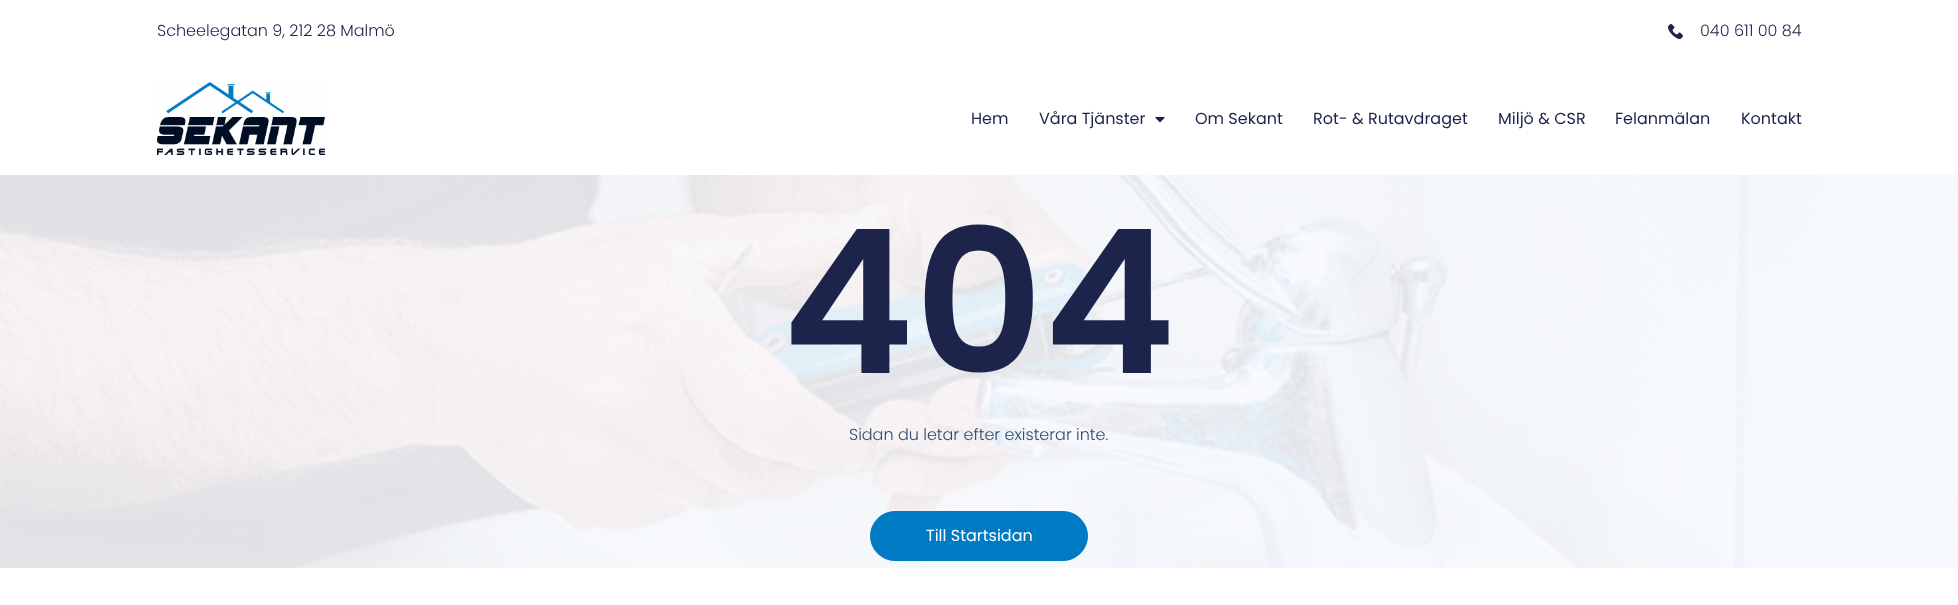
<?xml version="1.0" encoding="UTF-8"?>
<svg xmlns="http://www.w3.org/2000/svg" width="1958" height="605">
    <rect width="100%" height="100%" fill="#FFFFFF"/>
    <text x="157" y="36" font-family="Poppins" font-size="16" font-weight="300" fill="#1C244B">Scheelegatan 9, 212 28 Malmö</text>
    <image x="1668" y="24" width="15" height="15" href="img_01.png"/>
    <text x="1700" y="36" font-family="Poppins" font-size="16" font-weight="300" fill="#1C244B">040 611 00 84</text>
    <image x="157" y="82" width="168" height="73" href="img_02.png"/>
    <text x="971" y="124" font-family="Poppins" font-size="16" fill="#1C244B">Hem</text>
    <text x="1039" y="124" font-family="Poppins" font-size="16" fill="#1C244B">Våra Tjänster</text>
    <image x="1155" y="117" width="10" height="6" href="img_03.png"/>
    <text x="1195" y="124" font-family="Poppins" font-size="16" fill="#1C244B">Om Sekant</text>
    <text x="1313" y="124" font-family="Poppins" font-size="16" fill="#1C244B">Rot- &amp; Rutavdraget</text>
    <text x="1498" y="124" font-family="Poppins" font-size="16" fill="#1C244B">Miljö &amp; CSR</text>
    <text x="1615" y="124" font-family="Poppins" font-size="16" fill="#1C244B">Felanmälan</text>
    <text x="1741" y="124" font-family="Poppins" font-size="16" fill="#1C244B">Kontakt</text>
    <image x="0" y="175" width="1958" height="393" href="img_04.png"/>
    <text x="782" y="373" font-family="Poppins" font-size="200" font-weight="600" fill="#1C244B">404</text>
    <text x="849" y="440" font-family="Poppins" font-size="16" font-weight="300" fill="#324A6D">Sidan du letar efter existerar inte.</text>
    <rect x="870.5" y="511.5" width="217" height="49" rx="24.5" fill="#007AC3" stroke="#007AC3"/>
    <text x="926" y="541" font-family="Poppins" font-size="16" fill="#FFFFFF">Till Startsidan</text>
</svg>
